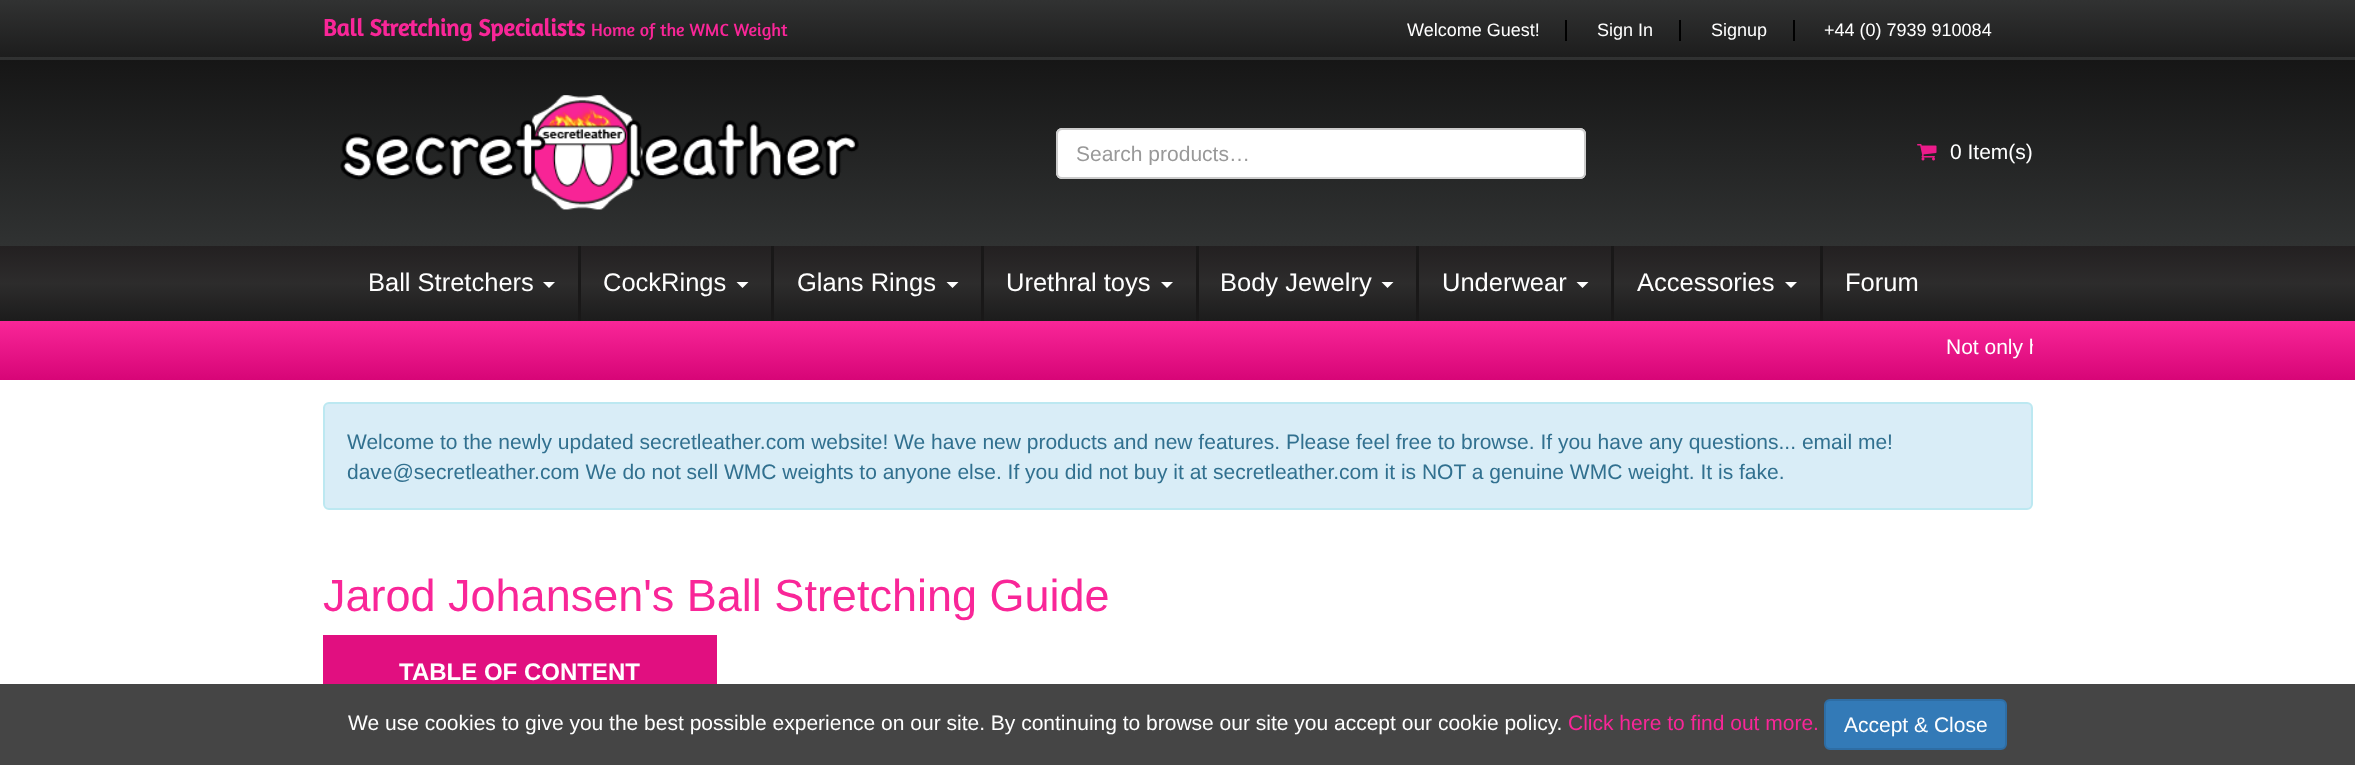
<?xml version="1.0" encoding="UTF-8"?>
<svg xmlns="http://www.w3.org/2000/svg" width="2355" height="765">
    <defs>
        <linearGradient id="g1" gradientUnits="userSpaceOnUse" x1="1178" y1="0" x2="1178" y2="57"><stop offset="0" stop-color="#313232"/><stop offset="1" stop-color="#1D1D1D"/></linearGradient>
        <linearGradient id="g2" gradientUnits="userSpaceOnUse" x1="1178" y1="57" x2="1178" y2="114"><stop offset="0" stop-color="#313232"/><stop offset="1" stop-color="#1D1D1D"/></linearGradient>
        <linearGradient id="g3" gradientUnits="userSpaceOnUse" x1="1178" y1="60" x2="1178" y2="246"><stop offset="0" stop-color="#161616"/><stop offset="1" stop-color="#303232"/></linearGradient>
        <clipPath id="clip1"><rect x="1076" y="141" width="484" height="24"/></clipPath>
        <linearGradient id="g4" gradientUnits="userSpaceOnUse" x1="1178" y1="246" x2="1178" y2="321"><stop offset="0" stop-color="#232021"/><stop offset="0.5" stop-color="#2D2C2C"/><stop offset="1" stop-color="#1C1C1C"/></linearGradient>
        <linearGradient id="g5" gradientUnits="userSpaceOnUse" x1="1178" y1="321" x2="1178" y2="380"><stop offset="0" stop-color="#F92698"/><stop offset="1" stop-color="#D70577"/></linearGradient>
        <clipPath id="clip2"><rect x="323" y="332" width="1710" height="30"/></clipPath>
    </defs>
    <rect width="100%" height="100%" fill="#FFFFFF"/>
    <rect x="0" y="0" width="2355" height="57" fill="url(#g1)"/>
    <rect x="0" y="57" width="2355" height="3" fill="url(#g2)"/>
    <text x="323" y="36" font-family="Amaranth" font-size="24" font-weight="700" fill="#F92698">Ball Stretching Specialists</text>
    <text x="591" y="36" font-family="Amaranth" font-size="18" fill="#F92698">Home of the WMC Weight</text>
    <text x="1407" y="36" font-family="Liberation Sans" font-size="18" fill="#FFFFFF">Welcome Guest!</text>
    <rect x="1565" y="20" width="2" height="21" fill="#000000"/>
    <text x="1597" y="36" font-family="Liberation Sans" font-size="18" fill="#FFFFFF">Sign In</text>
    <rect x="1679" y="20" width="2" height="21" fill="#000000"/>
    <text x="1711" y="36" font-family="Liberation Sans" font-size="18" fill="#FFFFFF">Signup</text>
    <rect x="1793" y="20" width="2" height="21" fill="#000000"/>
    <text x="1824" y="36" font-family="Liberation Sans" font-size="18" fill="#FFFFFF">+44 (0) 7939 910084</text>
    <rect x="0" y="60" width="2355" height="186" fill="url(#g3)"/>
    <image x="340" y="95" width="519" height="115" href="img_01.png"/>
    <rect x="1056" y="128" width="530" height="51" rx="6" fill="#FFFFFF"/>
    <path d="M 1062 130 H 1580 C 1582 130 1584 133 1584 135 V 134 C 1584 131 1582 129 1579 129 H 1063 C 1060 129 1058 131 1058 134 V 135 C 1058 133 1060 130 1062 130 Z" fill="#ECECEC"/>
    <rect x="1057" y="129" width="528" height="49" rx="5" fill="none" stroke="#CCCCCC" stroke-width="2"/>
    <g clip-path="url(#clip1)">
        <text x="1076" y="161" font-family="Liberation Sans" font-size="21" fill="#999999">Search products…</text>
    </g>
    <image x="1917" y="144" width="20" height="17" href="img_02.png"/>
    <text x="1950" y="159" font-family="Liberation Sans" font-size="21" fill="#FFFFFF">0 Item(s)</text>
    <rect x="0" y="246" width="2355" height="75" fill="url(#g4)"/>
    <rect x="578" y="246" width="3" height="75" fill="#191818"/>
    <text x="368" y="291" font-family="Liberation Sans" font-size="25.5" fill="#FFFFFF">Ball Stretchers</text>
    <path d="M 543 282 H 555 L 549 288 Z" fill="#FFFFFF"/>
    <rect x="771" y="246" width="3" height="75" fill="#191818"/>
    <text x="603" y="291" font-family="Liberation Sans" font-size="25.5" fill="#FFFFFF">CockRings</text>
    <path d="M 736.5 282 H 748.5 L 742.5 288 Z" fill="#FFFFFF"/>
    <rect x="981" y="246" width="3" height="75" fill="#191818"/>
    <text x="797" y="291" font-family="Liberation Sans" font-size="25.5" fill="#FFFFFF">Glans Rings</text>
    <path d="M 946.5 282 H 958.5 L 952.5 288 Z" fill="#FFFFFF"/>
    <rect x="1196" y="246" width="3" height="75" fill="#191818"/>
    <text x="1006" y="291" font-family="Liberation Sans" font-size="25.5" fill="#FFFFFF">Urethral toys</text>
    <path d="M 1161 282 H 1173 L 1167 288 Z" fill="#FFFFFF"/>
    <rect x="1416" y="246" width="3" height="75" fill="#191818"/>
    <text x="1220" y="291" font-family="Liberation Sans" font-size="25.5" fill="#FFFFFF">Body Jewelry</text>
    <path d="M 1381.5 282 H 1393.5 L 1387.5 288 Z" fill="#FFFFFF"/>
    <rect x="1611" y="246" width="3" height="75" fill="#191818"/>
    <text x="1442" y="291" font-family="Liberation Sans" font-size="25.5" fill="#FFFFFF">Underwear</text>
    <path d="M 1576.5 282 H 1588.5 L 1582.5 288 Z" fill="#FFFFFF"/>
    <rect x="1820" y="246" width="3" height="75" fill="#191818"/>
    <text x="1637" y="291" font-family="Liberation Sans" font-size="25.5" fill="#FFFFFF">Accessories</text>
    <path d="M 1785 282 H 1797 L 1791 288 Z" fill="#FFFFFF"/>
    <text x="1845" y="291" font-family="Liberation Sans" font-size="25.5" fill="#FFFFFF">Forum</text>
    <rect x="0" y="321" width="2355" height="59" fill="url(#g5)"/>
    <g clip-path="url(#clip2)">
        <text x="1946" y="354" font-family="Liberation Sans" font-size="21" fill="#FFFFFF">Not only h</text>
    </g>
    <rect x="324" y="403" width="1708" height="106" rx="5" fill="#D9EDF7" stroke="#BCE8F1" stroke-width="2"/>
    <text font-family="Liberation Sans" font-size="21" fill="#31708F">
        <tspan x="347" y="449">Welcome to the newly updated secretleather.com website! We have new products and new features. Please feel free to browse. If you have any questions... email me!</tspan>
        <tspan x="347" y="479">dave@secretleather.com We do not sell WMC weights to anyone else. If you did not buy it at secretleather.com it is NOT a genuine WMC weight. It is fake.</tspan>
    </text>
    <text x="323" y="611" font-family="Liberation Sans" font-size="45" fill="#F92698">Jarod Johansen's Ball Stretching Guide</text>
    <rect x="323" y="635" width="394" height="49" fill="#E10F80"/>
    <text x="399" y="680" font-family="Liberation Sans" font-size="24" font-weight="700" fill="#FFFFFF">TABLE OF CONTENT</text>
    <rect x="0" y="684" width="2355" height="81" fill="#454545"/>
    <text x="348" y="730" font-family="Liberation Sans" font-size="21" fill="#FFFFFF">We use cookies to give you the best possible experience on our site. By continuing to browse our site you accept our cookie policy.</text>
    <text x="1568" y="730" font-family="Liberation Sans" font-size="21" fill="#F92698">Click here to find out more.</text>
    <rect x="1825" y="700" width="181" height="49" rx="5" fill="#337AB7" stroke="#2E6DA4" stroke-width="2"/>
    <text x="1844" y="732" font-family="Liberation Sans" font-size="21" fill="#FFFFFF">Accept &amp; Close</text>
</svg>
